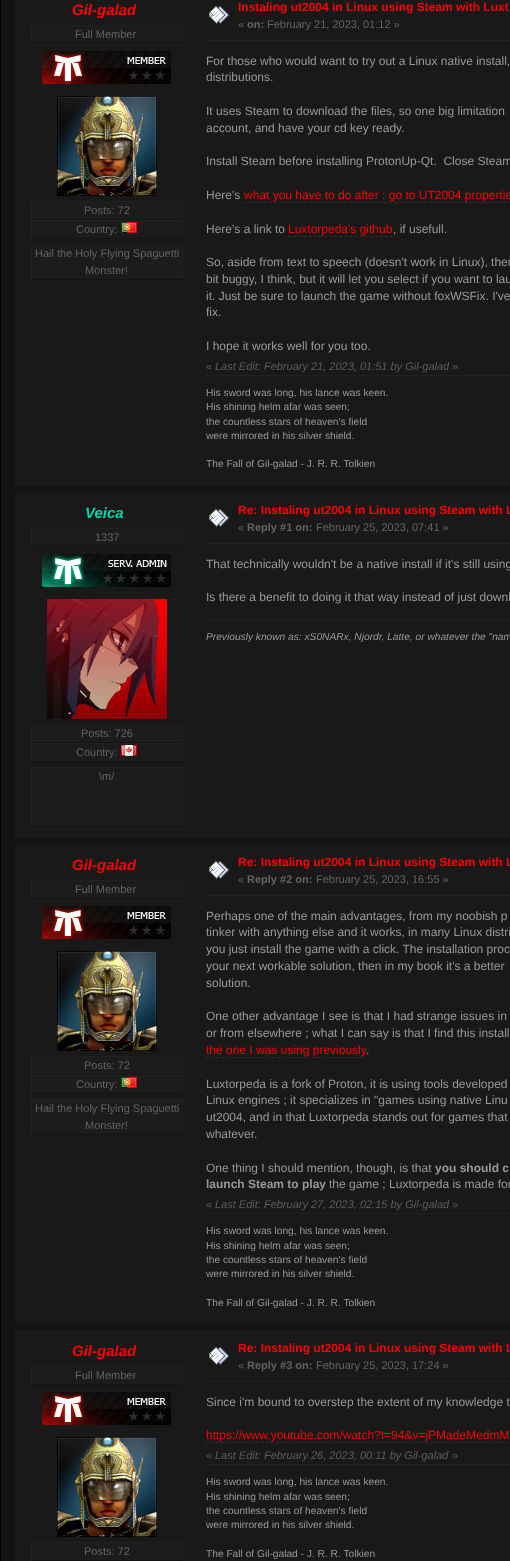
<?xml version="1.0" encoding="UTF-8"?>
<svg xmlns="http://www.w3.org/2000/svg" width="510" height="1561">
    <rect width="100%" height="100%" fill="#000000"/>
    <rect x="1" y="0" width="509" height="1561" fill="#131313"/>
    <rect x="13.5" y="-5.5" width="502" height="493" rx="4.5" fill="#191919" stroke="#121212"/>
    <text x="72" y="15" font-family="Liberation Sans" font-size="15" font-weight="700" font-style="italic" fill="#FF0000">Gil-galad</text>
    <rect x="32" y="26" width="150" height="16" fill="#1C1C1C"/>
    <rect x="31" y="25" width="152" height="1" fill="#212121"/>
    <rect x="182" y="25" width="1" height="18" fill="#212121"/>
    <rect x="31" y="42" width="152" height="1" fill="#131313"/>
    <rect x="31" y="25" width="1" height="18" fill="#212121"/>
    <text x="75" y="38" font-family="Liberation Sans" font-size="11" fill="#636363">Full Member</text>
    <image x="42" y="51" width="129" height="34" href="img_01.png"/>
    <image x="57" y="96" width="100" height="100" href="img_02.png"/>
    <rect x="32" y="202" width="150" height="17" fill="#1C1C1C"/>
    <rect x="31" y="201" width="152" height="1" fill="#212121"/>
    <rect x="182" y="201" width="1" height="19" fill="#212121"/>
    <rect x="31" y="219" width="152" height="1" fill="#131313"/>
    <rect x="31" y="201" width="1" height="19" fill="#212121"/>
    <text x="84" y="214" font-family="Liberation Sans" font-size="11" fill="#636363">Posts: 72</text>
    <rect x="32" y="221" width="150" height="17" fill="#1C1C1C"/>
    <rect x="31" y="220" width="152" height="1" fill="#212121"/>
    <rect x="182" y="220" width="1" height="19" fill="#212121"/>
    <rect x="31" y="238" width="152" height="1" fill="#131313"/>
    <rect x="31" y="220" width="1" height="19" fill="#212121"/>
    <text x="76" y="233" font-family="Liberation Sans" font-size="11" fill="#636363">Country:</text>
    <image x="121" y="222" width="16" height="11" href="img_03.png"/>
    <rect x="32" y="245" width="150" height="34" fill="#1C1C1C"/>
    <rect x="31" y="244" width="152" height="1" fill="#212121"/>
    <rect x="182" y="244" width="1" height="36" fill="#212121"/>
    <rect x="31" y="279" width="152" height="1" fill="#131313"/>
    <rect x="31" y="244" width="1" height="36" fill="#212121"/>
    <text x="35" y="257" font-family="Liberation Sans" font-size="11" fill="#636363">Hail the Holy Flying Spaguetti</text>
    <text x="85" y="274" font-family="Liberation Sans" font-size="11" fill="#636363">Monster!</text>
    <image x="209" y="6" width="20" height="18" href="img_04.png"/>
    <text x="238" y="11" font-family="Liberation Sans" font-size="12" font-weight="700" fill="#FF0000">Instaling ut2004 in Linux using Steam with Luxt</text>
    <text x="238" y="28" font-family="Liberation Sans" font-size="11" fill="#636363">«</text>
    <text x="247" y="28" font-family="Liberation Sans" font-size="11" font-weight="700" fill="#636363">on:</text>
    <text x="267" y="28" font-family="Liberation Sans" font-size="11" fill="#636363">February 21, 2023, 01:12 »</text>
    <rect x="206" y="40" width="304" height="1" fill="#212121"/>
    <text font-family="Liberation Sans" font-size="12" fill="#999999">
        <tspan x="206" y="65">For those who would want to try out a Linux native install,</tspan>
        <tspan x="206" y="81">distributions.</tspan>
    </text>
    <text font-family="Liberation Sans" font-size="12" fill="#999999">
        <tspan x="206" y="115">It uses Steam to download the files, so one big limitation</tspan>
        <tspan x="206" y="132">account, and have your cd key ready.</tspan>
    </text>
    <text x="206" y="165" font-family="Liberation Sans" font-size="12" fill="#999999" xml:space="preserve">Install Steam before installing ProtonUp-Qt.  Close Steam</text>
    <text x="206" y="199" font-family="Liberation Sans" font-size="12" fill="#999999">Here's</text>
    <text x="244" y="199" font-family="Liberation Sans" font-size="12" fill="#FF0000">what you have to do after : go to UT2004 propertie</text>
    <path d="M 244 202.5 H 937" fill="none" stroke="#2E2E2E" stroke-dasharray="3 2"/>
    <text x="206" y="233" font-family="Liberation Sans" font-size="12" fill="#999999">Here's a link to</text>
    <text x="288" y="233" font-family="Liberation Sans" font-size="12" fill="#FF0000">Luxtorpeda's github</text>
    <path d="M 288 236.5 H 393" fill="none" stroke="#2E2E2E" stroke-dasharray="3 2.1"/>
    <text x="393" y="233" font-family="Liberation Sans" font-size="12" fill="#999999">, if usefull.</text>
    <text font-family="Liberation Sans" font-size="12" fill="#999999">
        <tspan x="206" y="266">So, aside from text to speech (doesn't work in Linux), ther</tspan>
        <tspan x="206" y="283">bit buggy, I think, but it will let you select if you want to lau</tspan>
        <tspan x="206" y="300">it. Just be sure to launch the game without foxWSFix. I've</tspan>
        <tspan x="206" y="316">fix.</tspan>
    </text>
    <text x="206" y="350" font-family="Liberation Sans" font-size="12" fill="#999999">I hope it works well for you too.</text>
    <text x="206" y="370" font-family="Liberation Sans" font-size="11" fill="#5C5C5C">«</text>
    <text x="215" y="370" font-family="Liberation Sans" font-size="11" font-style="italic" fill="#5C5C5C">Last Edit: February 21, 2023, 01:51 by Gil-galad</text>
    <text x="452" y="370" font-family="Liberation Sans" font-size="11" fill="#5C5C5C">»</text>
    <rect x="206" y="375" width="304" height="1" fill="#212121"/>
    <text font-family="Liberation Sans" font-size="10.2" fill="#999999">
        <tspan x="206" y="396">His sword was long, his lance was keen.</tspan>
        <tspan x="206" y="410">His shining helm afar was seen;</tspan>
        <tspan x="206" y="425">the countless stars of heaven's field</tspan>
        <tspan x="206" y="439">were mirrored in his silver shield.</tspan>
    </text>
    <text x="206" y="467" font-family="Liberation Sans" font-size="10.2" fill="#999999">The Fall of Gil-galad - J. R. R. Tolkien</text>
    <rect x="13.5" y="490.5" width="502" height="349" rx="4.5" fill="#191919" stroke="#121212"/>
    <text x="85" y="518" font-family="Liberation Sans" font-size="15" font-weight="700" font-style="italic" fill="#00D9A9">Veica</text>
    <rect x="32" y="529" width="150" height="16" fill="#1C1C1C"/>
    <rect x="31" y="528" width="152" height="1" fill="#212121"/>
    <rect x="182" y="528" width="1" height="18" fill="#212121"/>
    <rect x="31" y="545" width="152" height="1" fill="#131313"/>
    <rect x="31" y="528" width="1" height="18" fill="#212121"/>
    <text x="95" y="541" font-family="Liberation Sans" font-size="11" fill="#636363">1337</text>
    <image x="42" y="554" width="129" height="34" href="img_05.png"/>
    <image x="47" y="599" width="120" height="120" href="img_06.png"/>
    <rect x="32" y="725" width="150" height="17" fill="#1C1C1C"/>
    <rect x="31" y="724" width="152" height="1" fill="#212121"/>
    <rect x="182" y="724" width="1" height="19" fill="#212121"/>
    <rect x="31" y="742" width="152" height="1" fill="#131313"/>
    <rect x="31" y="724" width="1" height="19" fill="#212121"/>
    <text x="81" y="737" font-family="Liberation Sans" font-size="11" fill="#636363">Posts: 726</text>
    <rect x="32" y="744" width="150" height="17" fill="#1C1C1C"/>
    <rect x="31" y="743" width="152" height="1" fill="#212121"/>
    <rect x="182" y="743" width="1" height="19" fill="#212121"/>
    <rect x="31" y="761" width="152" height="1" fill="#131313"/>
    <rect x="31" y="743" width="1" height="19" fill="#212121"/>
    <text x="76" y="756" font-family="Liberation Sans" font-size="11" fill="#636363">Country:</text>
    <image x="121" y="745" width="16" height="11" href="img_07.png"/>
    <rect x="32" y="768" width="150" height="17" fill="#1C1C1C"/>
    <rect x="31" y="767" width="152" height="1" fill="#212121"/>
    <rect x="182" y="767" width="1" height="19" fill="#212121"/>
    <rect x="31" y="785" width="152" height="1" fill="#131313"/>
    <rect x="31" y="767" width="1" height="19" fill="#212121"/>
    <text x="99" y="780" font-family="Liberation Sans" font-size="11" fill="#636363">\m/</text>
    <rect x="32" y="787" width="150" height="39" fill="#1C1C1C"/>
    <rect x="31" y="786" width="152" height="1" fill="#212121"/>
    <rect x="182" y="786" width="1" height="41" fill="#212121"/>
    <rect x="31" y="826" width="152" height="1" fill="#131313"/>
    <rect x="31" y="786" width="1" height="41" fill="#212121"/>
    <image x="209" y="509" width="20" height="18" href="img_04.png"/>
    <text x="238" y="514" font-family="Liberation Sans" font-size="12" font-weight="700" fill="#FF0000">Re: Instaling ut2004 in Linux using Steam with L</text>
    <text x="238" y="531" font-family="Liberation Sans" font-size="11" fill="#636363">«</text>
    <text x="247" y="531" font-family="Liberation Sans" font-size="11" font-weight="700" fill="#636363">Reply #1 on:</text>
    <text x="316" y="531" font-family="Liberation Sans" font-size="11" fill="#636363">February 25, 2023, 07:41 »</text>
    <rect x="206" y="543" width="304" height="1" fill="#212121"/>
    <text x="206" y="568" font-family="Liberation Sans" font-size="12" fill="#999999">That technically wouldn't be a native install if it's still using</text>
    <text x="206" y="601" font-family="Liberation Sans" font-size="12" fill="#999999">Is there a benefit to doing it that way instead of just downl</text>
    <rect x="206" y="619" width="304" height="1" fill="#212121"/>
    <text x="206" y="640" font-family="Liberation Sans" font-size="10.2" font-style="italic" fill="#999999">Previously known as: xS0NARx, Njordr, Latte, or whatever the "nam</text>
    <rect x="13.5" y="842.5" width="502" height="483" rx="4.5" fill="#191919" stroke="#121212"/>
    <text x="72" y="870" font-family="Liberation Sans" font-size="15" font-weight="700" font-style="italic" fill="#FF0000">Gil-galad</text>
    <rect x="32" y="881" width="150" height="17" fill="#1C1C1C"/>
    <rect x="31" y="880" width="152" height="1" fill="#212121"/>
    <rect x="182" y="880" width="1" height="19" fill="#212121"/>
    <rect x="31" y="898" width="152" height="1" fill="#131313"/>
    <rect x="31" y="880" width="1" height="19" fill="#212121"/>
    <text x="75" y="893" font-family="Liberation Sans" font-size="11" fill="#636363">Full Member</text>
    <image x="42" y="906" width="129" height="34" href="img_01.png"/>
    <image x="57" y="951" width="100" height="100" href="img_02.png"/>
    <rect x="32" y="1057" width="150" height="17" fill="#1C1C1C"/>
    <rect x="31" y="1056" width="152" height="1" fill="#212121"/>
    <rect x="182" y="1056" width="1" height="19" fill="#212121"/>
    <rect x="31" y="1074" width="152" height="1" fill="#131313"/>
    <rect x="31" y="1056" width="1" height="19" fill="#212121"/>
    <text x="84" y="1069" font-family="Liberation Sans" font-size="11" fill="#636363">Posts: 72</text>
    <rect x="32" y="1076" width="150" height="17" fill="#1C1C1C"/>
    <rect x="31" y="1075" width="152" height="1" fill="#212121"/>
    <rect x="182" y="1075" width="1" height="19" fill="#212121"/>
    <rect x="31" y="1093" width="152" height="1" fill="#131313"/>
    <rect x="31" y="1075" width="1" height="19" fill="#212121"/>
    <text x="76" y="1088" font-family="Liberation Sans" font-size="11" fill="#636363">Country:</text>
    <image x="121" y="1077" width="16" height="11" href="img_03.png"/>
    <rect x="32" y="1100" width="150" height="34" fill="#1C1C1C"/>
    <rect x="31" y="1099" width="152" height="1" fill="#212121"/>
    <rect x="182" y="1099" width="1" height="36" fill="#212121"/>
    <rect x="31" y="1134" width="152" height="1" fill="#131313"/>
    <rect x="31" y="1099" width="1" height="36" fill="#212121"/>
    <text x="35" y="1112" font-family="Liberation Sans" font-size="11" fill="#636363">Hail the Holy Flying Spaguetti</text>
    <text x="85" y="1129" font-family="Liberation Sans" font-size="11" fill="#636363">Monster!</text>
    <image x="209" y="861" width="20" height="18" href="img_04.png"/>
    <text x="238" y="866" font-family="Liberation Sans" font-size="12" font-weight="700" fill="#FF0000">Re: Instaling ut2004 in Linux using Steam with L</text>
    <text x="238" y="883" font-family="Liberation Sans" font-size="11" fill="#636363">«</text>
    <text x="247" y="883" font-family="Liberation Sans" font-size="11" font-weight="700" fill="#636363">Reply #2 on:</text>
    <text x="316" y="883" font-family="Liberation Sans" font-size="11" fill="#636363">February 25, 2023, 16:55 »</text>
    <rect x="206" y="895" width="304" height="1" fill="#212121"/>
    <text font-family="Liberation Sans" font-size="12" fill="#999999">
        <tspan x="206" y="920">Perhaps one of the main advantages, from my noobish p</tspan>
        <tspan x="206" y="936">tinker with anything else and it works, in many Linux distri</tspan>
        <tspan x="206" y="953">you just install the game with a click. The installation proc</tspan>
        <tspan x="206" y="970">your next workable solution, then in my book it's a better</tspan>
        <tspan x="206" y="987">solution.</tspan>
    </text>
    <text font-family="Liberation Sans" font-size="12" fill="#999999">
        <tspan x="206" y="1020">One other advantage I see is that I had strange issues in</tspan>
        <tspan x="206" y="1037">or from elsewhere ; what I can say is that I find this install</tspan>
    </text>
    <text x="206" y="1054" font-family="Liberation Sans" font-size="12" fill="#FF0000">the one I was using previously</text>
    <path d="M 206 1057.5 H 366" fill="none" stroke="#2E2E2E" stroke-dasharray="3 2.06"/>
    <text x="366" y="1054" font-family="Liberation Sans" font-size="12" fill="#999999">.</text>
    <text font-family="Liberation Sans" font-size="12" fill="#999999">
        <tspan x="206" y="1088">Luxtorpeda is a fork of Proton, it is using tools developed</tspan>
        <tspan x="206" y="1104">Linux engines ; it specializes in "games using native Linu</tspan>
        <tspan x="206" y="1121">ut2004, and in that Luxtorpeda stands out for games that</tspan>
        <tspan x="206" y="1138">whatever.</tspan>
    </text>
    <text x="206" y="1172" font-family="Liberation Sans" font-size="12" fill="#999999">One thing I should mention, though, is that</text>
    <text x="435" y="1172" font-family="Liberation Sans" font-size="12" font-weight="700" fill="#999999">you should c</text>
    <text x="206" y="1188" font-family="Liberation Sans" font-size="12" font-weight="700" fill="#999999">launch Steam to play</text>
    <text x="329" y="1188" font-family="Liberation Sans" font-size="12" fill="#999999">the game ; Luxtorpeda is made for</text>
    <text x="206" y="1208" font-family="Liberation Sans" font-size="11" fill="#5C5C5C">«</text>
    <text x="215" y="1208" font-family="Liberation Sans" font-size="11" font-style="italic" fill="#5C5C5C">Last Edit: February 27, 2023, 02:15 by Gil-galad</text>
    <text x="452" y="1208" font-family="Liberation Sans" font-size="11" fill="#5C5C5C">»</text>
    <rect x="206" y="1213" width="304" height="1" fill="#212121"/>
    <text font-family="Liberation Sans" font-size="10.2" fill="#999999">
        <tspan x="206" y="1234">His sword was long, his lance was keen.</tspan>
        <tspan x="206" y="1249">His shining helm afar was seen;</tspan>
        <tspan x="206" y="1263">the countless stars of heaven's field</tspan>
        <tspan x="206" y="1277">were mirrored in his silver shield.</tspan>
    </text>
    <text x="206" y="1306" font-family="Liberation Sans" font-size="10.2" fill="#999999">The Fall of Gil-galad - J. R. R. Tolkien</text>
    <rect x="13.5" y="1328.5" width="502" height="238" rx="4.5" fill="#191919" stroke="#121212"/>
    <text x="72" y="1356" font-family="Liberation Sans" font-size="15" font-weight="700" font-style="italic" fill="#FF0000">Gil-galad</text>
    <rect x="32" y="1367" width="150" height="17" fill="#1C1C1C"/>
    <rect x="31" y="1366" width="152" height="1" fill="#212121"/>
    <rect x="182" y="1366" width="1" height="19" fill="#212121"/>
    <rect x="31" y="1384" width="152" height="1" fill="#131313"/>
    <rect x="31" y="1366" width="1" height="19" fill="#212121"/>
    <text x="75" y="1379" font-family="Liberation Sans" font-size="11" fill="#636363">Full Member</text>
    <image x="42" y="1392" width="129" height="34" href="img_01.png"/>
    <image x="57" y="1437" width="100" height="100" href="img_02.png"/>
    <rect x="32" y="1543" width="150" height="17" fill="#1C1C1C"/>
    <rect x="31" y="1542" width="152" height="1" fill="#212121"/>
    <rect x="182" y="1542" width="1" height="19" fill="#212121"/>
    <rect x="31" y="1560" width="152" height="1" fill="#131313"/>
    <rect x="31" y="1542" width="1" height="19" fill="#212121"/>
    <text x="84" y="1555" font-family="Liberation Sans" font-size="11" fill="#636363">Posts: 72</text>
    <image x="209" y="1347" width="20" height="18" href="img_04.png"/>
    <text x="238" y="1352" font-family="Liberation Sans" font-size="12" font-weight="700" fill="#FF0000">Re: Instaling ut2004 in Linux using Steam with L</text>
    <text x="238" y="1369" font-family="Liberation Sans" font-size="11" fill="#636363">«</text>
    <text x="247" y="1369" font-family="Liberation Sans" font-size="11" font-weight="700" fill="#636363">Reply #3 on:</text>
    <text x="316" y="1369" font-family="Liberation Sans" font-size="11" fill="#636363">February 25, 2023, 17:24 »</text>
    <rect x="206" y="1381" width="304" height="1" fill="#212121"/>
    <text x="206" y="1406" font-family="Liberation Sans" font-size="12" fill="#999999">Since i'm bound to overstep the extent of my knowledge t</text>
    <text x="206" y="1439" font-family="Liberation Sans" font-size="12" fill="#FF0000">https://www.youtube.com/watch?t=94&amp;v=jPMadeMedmM</text>
    <path d="M 206 1442.5 H 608" fill="none" stroke="#2E2E2E" stroke-dasharray="3 1.99"/>
    <text x="206" y="1459" font-family="Liberation Sans" font-size="11" fill="#5C5C5C">«</text>
    <text x="215" y="1459" font-family="Liberation Sans" font-size="11" font-style="italic" fill="#5C5C5C">Last Edit: February 26, 2023, 00:11 by Gil-galad</text>
    <text x="452" y="1459" font-family="Liberation Sans" font-size="11" fill="#5C5C5C">»</text>
    <rect x="206" y="1464" width="304" height="1" fill="#212121"/>
    <text font-family="Liberation Sans" font-size="10.2" fill="#999999">
        <tspan x="206" y="1485">His sword was long, his lance was keen.</tspan>
        <tspan x="206" y="1500">His shining helm afar was seen;</tspan>
        <tspan x="206" y="1514">the countless stars of heaven's field</tspan>
        <tspan x="206" y="1528">were mirrored in his silver shield.</tspan>
    </text>
    <text x="206" y="1557" font-family="Liberation Sans" font-size="10.2" fill="#999999">The Fall of Gil-galad - J. R. R. Tolkien</text>
</svg>
